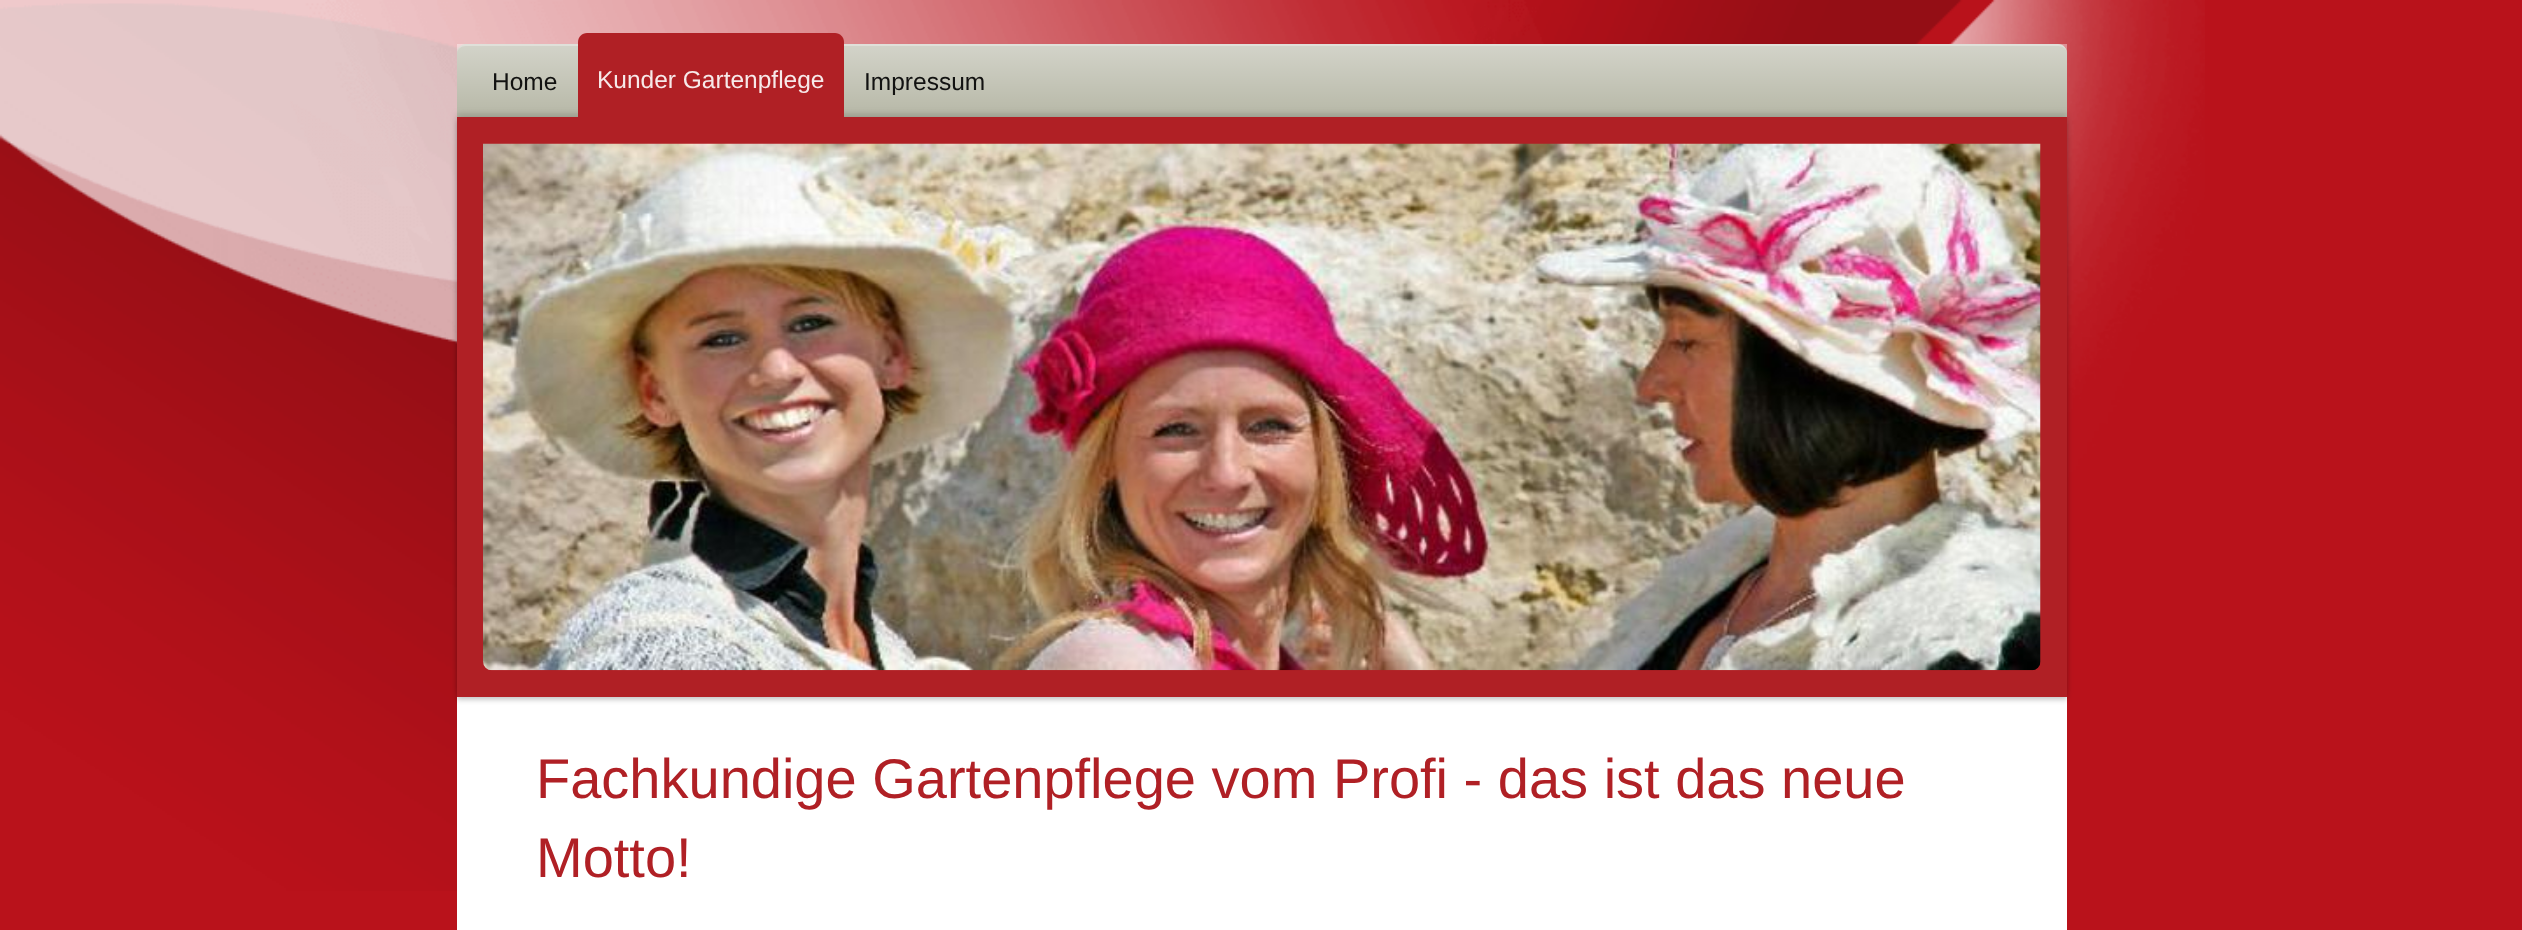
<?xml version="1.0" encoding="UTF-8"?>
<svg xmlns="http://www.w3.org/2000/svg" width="2522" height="930">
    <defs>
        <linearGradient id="g1" gradientUnits="userSpaceOnUse" x1="438" y1="44" x2="438" y2="119"><stop offset="0" stop-color="#FFFFFF" stop-opacity="0.4"/><stop offset="1" stop-color="#FFFFFF" stop-opacity="0"/></linearGradient>
        <filter id="blur1" x="-50%" y="-200%" width="200%" height="500%"><feGaussianBlur stdDeviation="3.5"/></filter>
        <filter id="blur2" x="-50%" y="-200%" width="200%" height="500%"><feGaussianBlur stdDeviation="2.5"/></filter>
    </defs>
    <rect width="100%" height="100%" fill="#B9121B"/>
    <image x="0" y="0" width="2205" height="891" href="img_01.png"/>
    <path d="M 466 44 H 2058 C 2063 44 2067 48 2067 53 V 119 H 457 V 53 C 457 48 461 44 466 44 Z" fill="#B6B7A6"/>
    <path d="M 466 46 H 2058 C 2063 46 2067 49 2067 54 C 2067 49 2064 44 2058 44 H 466 C 460 44 457 49 457 54 C 457 49 461 46 466 46 Z" fill="#FFFFFF" fill-opacity="0.3"/>
    <rect x="457" y="44" width="1610" height="69" fill="url(#g1)"/>
    <text x="492" y="90" font-family="Liberation Sans" font-size="24.5" fill="#121211">Home</text>
    <rect x="457" y="697" width="1610" height="233" fill="#FFFFFF"/>
    <rect x="457" y="114" width="1610" height="579" fill="#000000" fill-opacity="0.15" filter="url(#blur1)"/>
    <rect x="457" y="121" width="1610" height="579" fill="#000000" fill-opacity="0.2" filter="url(#blur2)"/>
    <rect x="457" y="117" width="1610" height="580" fill="#B02025"/>
    <path d="M 587 33 H 835 C 840 33 844 37 844 42 V 119 H 578 V 42 C 578 37 582 33 587 33 Z" fill="#B02025"/>
    <text x="597" y="88" font-family="Liberation Sans" font-size="24.5" fill="#F7E9E9">Kunder Gartenpflege</text>
    <text x="864" y="90" font-family="Liberation Sans" font-size="24.5" fill="#121211">Impressum</text>
    <image x="483" y="143" width="1558" height="528" href="img_02.png"/>
    <text font-family="Liberation Sans" font-size="56" fill="#B02025">
        <tspan x="536" y="798">Fachkundige Gartenpflege vom Profi - das ist das neue</tspan>
        <tspan x="536" y="877">Motto!</tspan>
    </text>
</svg>
